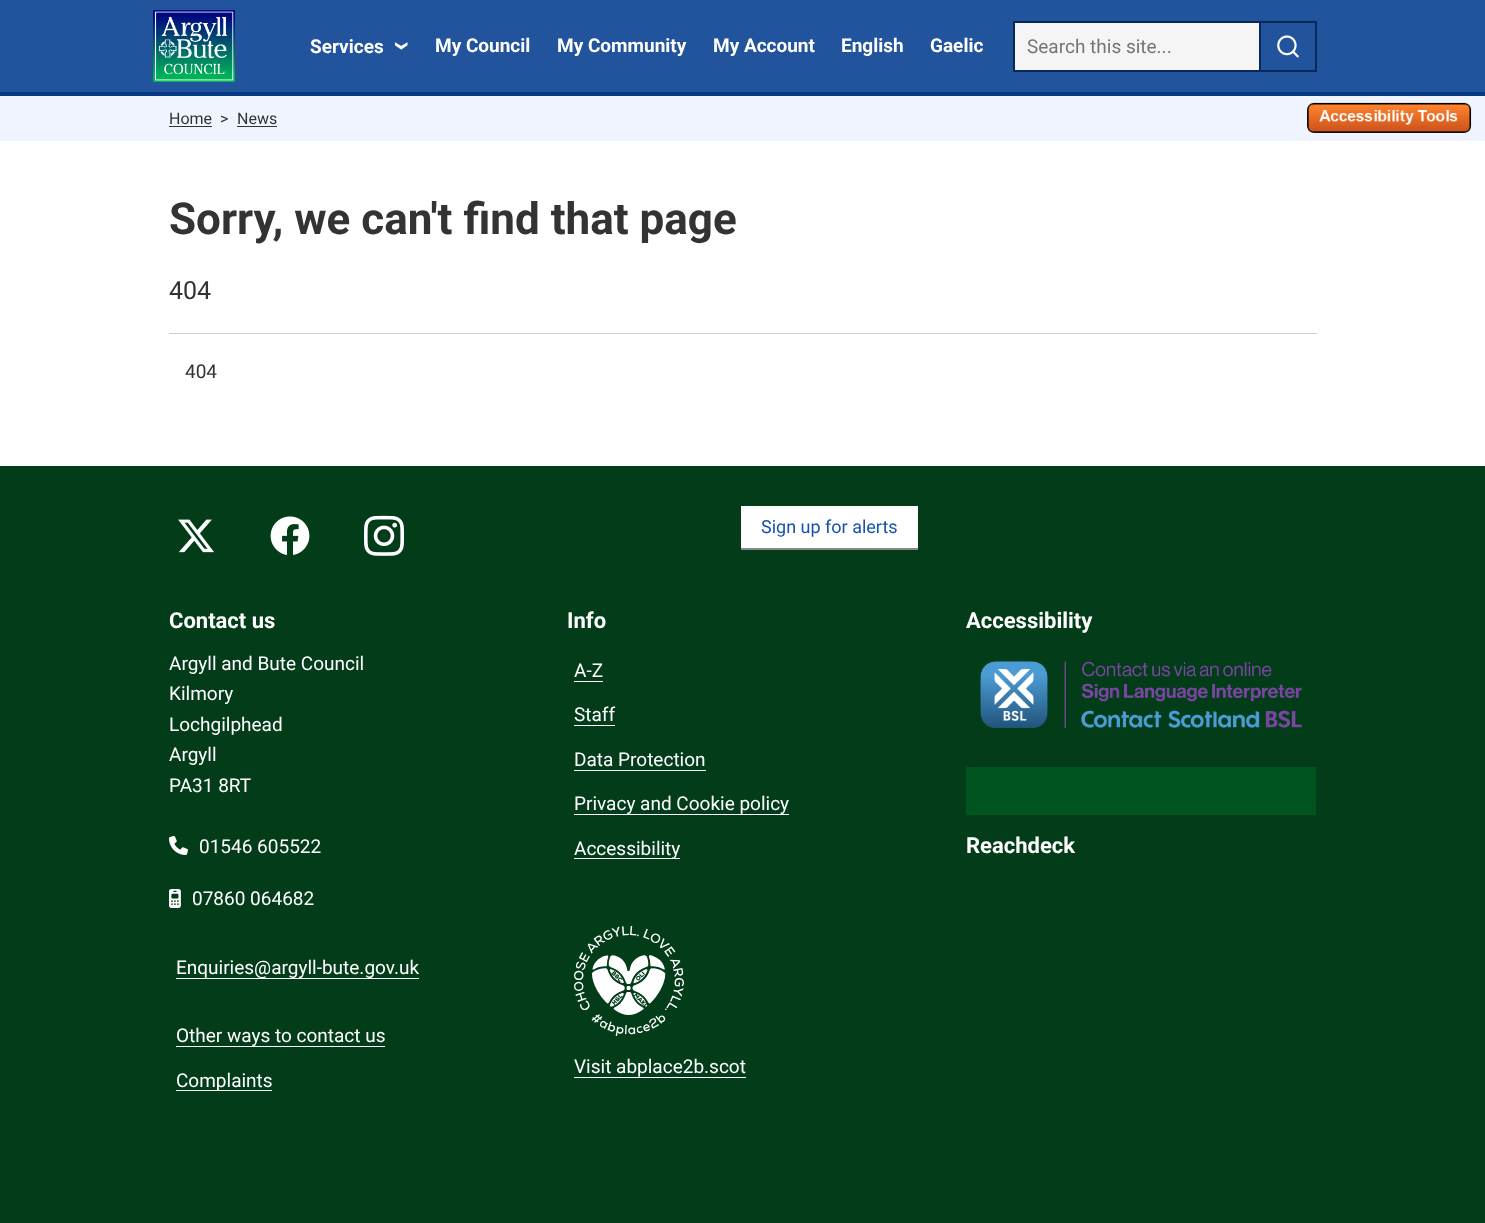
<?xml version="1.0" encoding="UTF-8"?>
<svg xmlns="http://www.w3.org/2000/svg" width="1485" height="1223">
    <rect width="100%" height="100%" fill="#FFFFFF"/>
    <rect x="0" y="0" width="1485" height="92" fill="#22549E"/>
    <rect x="0" y="92" width="1485" height="4" fill="#063985"/>
    <image x="153" y="10" width="82" height="72" href="img_01.png"/>
    <text x="310" y="53" font-family="Roboto" font-size="19" font-weight="700" fill="#FFFFFF">Services</text>
    <text x="393" y="41" transform="rotate(90 393 41)" font-family="Roboto" font-size="32" font-weight="700" fill="#FFFFFF">›</text>
    <text x="435" y="52" font-family="Roboto" font-size="19" font-weight="700" fill="#FFFFFF">My Council</text>
    <text x="557" y="52" font-family="Roboto" font-size="19" font-weight="700" fill="#FFFFFF">My Community</text>
    <text x="713" y="52" font-family="Roboto" font-size="19" font-weight="700" fill="#FFFFFF">My Account</text>
    <text x="841" y="52" font-family="Roboto" font-size="19" font-weight="700" fill="#FFFFFF">English</text>
    <text x="930" y="52" font-family="Roboto" font-size="19" font-weight="700" fill="#FFFFFF">Gaelic</text>
    <rect x="1015" y="23" width="244" height="47" fill="#F5F5F5"/>
    <rect x="1013" y="21" width="304" height="2" fill="#07295A"/>
    <rect x="1259" y="21" width="1" height="51" fill="#07295A"/>
    <rect x="1013" y="70" width="247" height="2" fill="#07295A"/>
    <rect x="1013" y="21" width="2" height="51" fill="#07295A"/>
    <text x="1027" y="53" font-family="Roboto" font-size="19" fill="#757575">Search this site...</text>
    <image x="1277" y="35" width="22" height="23" href="img_02.png"/>
    <rect x="1315" y="21" width="2" height="51" fill="#07295A"/>
    <rect x="1260" y="70" width="57" height="2" fill="#07295A"/>
    <rect x="1260" y="21" width="1" height="51" fill="#07295A"/>
    <rect x="0" y="96" width="1485" height="45" fill="#F0F4FF"/>
    <text x="169" y="124" font-family="Roboto" font-size="16" fill="#333333">Home</text>
    <rect x="169" y="126" width="43" height="1" fill="#333333"/>
    <text x="220" y="124" font-family="Roboto" font-size="16" fill="#333333">&gt;</text>
    <text x="237" y="124" font-family="Roboto" font-size="16" fill="#333333">News</text>
    <rect x="237" y="126" width="40" height="1" fill="#333333"/>
    <rect x="169" y="333" width="1148" height="1" fill="#CECFD0"/>
    <text x="169" y="234" font-family="Roboto" font-size="44" font-weight="700" fill="#333333">Sorry, we can't find that page</text>
    <text x="169" y="299" font-family="Roboto" font-size="25" fill="#333333">404</text>
    <text x="185" y="378" font-family="Roboto" font-size="19" fill="#333333">404</text>
    <rect x="0" y="466" width="1485" height="757" fill="#023C19"/>
    <image x="178" y="519" width="36" height="34" href="img_03.png"/>
    <image x="270" y="516" width="40" height="39" href="img_04.png"/>
    <image x="364" y="515" width="40" height="41" href="img_05.png"/>
    <rect x="741" y="506" width="177" height="42" fill="#FFFFFF"/>
    <rect x="741" y="548" width="177" height="2" fill="#888888"/>
    <text x="761" y="533" font-family="Roboto" font-size="18" fill="#1752AB">Sign up for alerts</text>
    <text x="169" y="628" font-family="Roboto" font-size="22" font-weight="700" fill="#FFFFFF">Contact us</text>
    <text font-family="Roboto" font-size="19" fill="#FFFFFF">
        <tspan x="169" y="670">Argyll and Bute Council</tspan>
        <tspan x="169" y="700">Kilmory</tspan>
        <tspan x="169" y="731">Lochgilphead</tspan>
        <tspan x="169" y="761">Argyll</tspan>
        <tspan x="169" y="792">PA31 8RT</tspan>
    </text>
    <image x="169" y="836" width="19" height="19" href="img_06.png"/>
    <text x="199" y="853" font-family="Roboto" font-size="19" fill="#FFFFFF">01546 605522</text>
    <image x="169" y="889" width="12" height="19" href="img_07.png"/>
    <text x="192" y="905" font-family="Roboto" font-size="19" fill="#FFFFFF">07860 064682</text>
    <rect x="176" y="978" width="243" height="1" fill="#FFFFFF"/>
    <text x="176" y="974" font-family="Roboto" font-size="19" fill="#FFFFFF">Enquiries@argyll-bute.gov.uk</text>
    <rect x="176" y="1046" width="209" height="1" fill="#FFFFFF"/>
    <text x="176" y="1042" font-family="Roboto" font-size="19" fill="#FFFFFF">Other ways to contact us</text>
    <rect x="176" y="1090" width="96" height="1" fill="#FFFFFF"/>
    <text x="176" y="1087" font-family="Roboto" font-size="19" fill="#FFFFFF">Complaints</text>
    <text x="567" y="628" font-family="Roboto" font-size="22" font-weight="700" fill="#FFFFFF">Info</text>
    <text x="574" y="677" font-family="Roboto" font-size="19" fill="#FFFFFF">A-Z</text>
    <rect x="574" y="681" width="29" height="1" fill="#FFFFFF"/>
    <text x="574" y="721" font-family="Roboto" font-size="19" fill="#FFFFFF">Staff</text>
    <rect x="574" y="725" width="41" height="1" fill="#FFFFFF"/>
    <text x="574" y="766" font-family="Roboto" font-size="19" fill="#FFFFFF">Data Protection</text>
    <rect x="574" y="770" width="132" height="1" fill="#FFFFFF"/>
    <rect x="574" y="814" width="215" height="1" fill="#FFFFFF"/>
    <text x="574" y="810" font-family="Roboto" font-size="19" fill="#FFFFFF">Privacy and Cookie policy</text>
    <rect x="574" y="858" width="106" height="1" fill="#FFFFFF"/>
    <text x="574" y="855" font-family="Roboto" font-size="19" fill="#FFFFFF">Accessibility</text>
    <image x="574" y="926" width="110" height="110" href="img_08.png"/>
    <text x="574" y="1073" font-family="Roboto" font-size="19" fill="#FFFFFF">Visit abplace2b.scot</text>
    <rect x="574" y="1077" width="172" height="1" fill="#FFFFFF"/>
    <text x="966" y="628" font-family="Roboto" font-size="22" font-weight="700" fill="#FFFFFF">Accessibility</text>
    <image x="980" y="661" width="323" height="67" href="img_09.png"/>
    <rect x="966" y="767" width="350" height="48" fill="#00551F"/>
    <text x="966" y="853" font-family="Roboto" font-size="22" font-weight="700" fill="#FFFFFF">Reachdeck</text>
    <image x="1307" y="102" width="165" height="31" href="img_10.png"/>
</svg>
